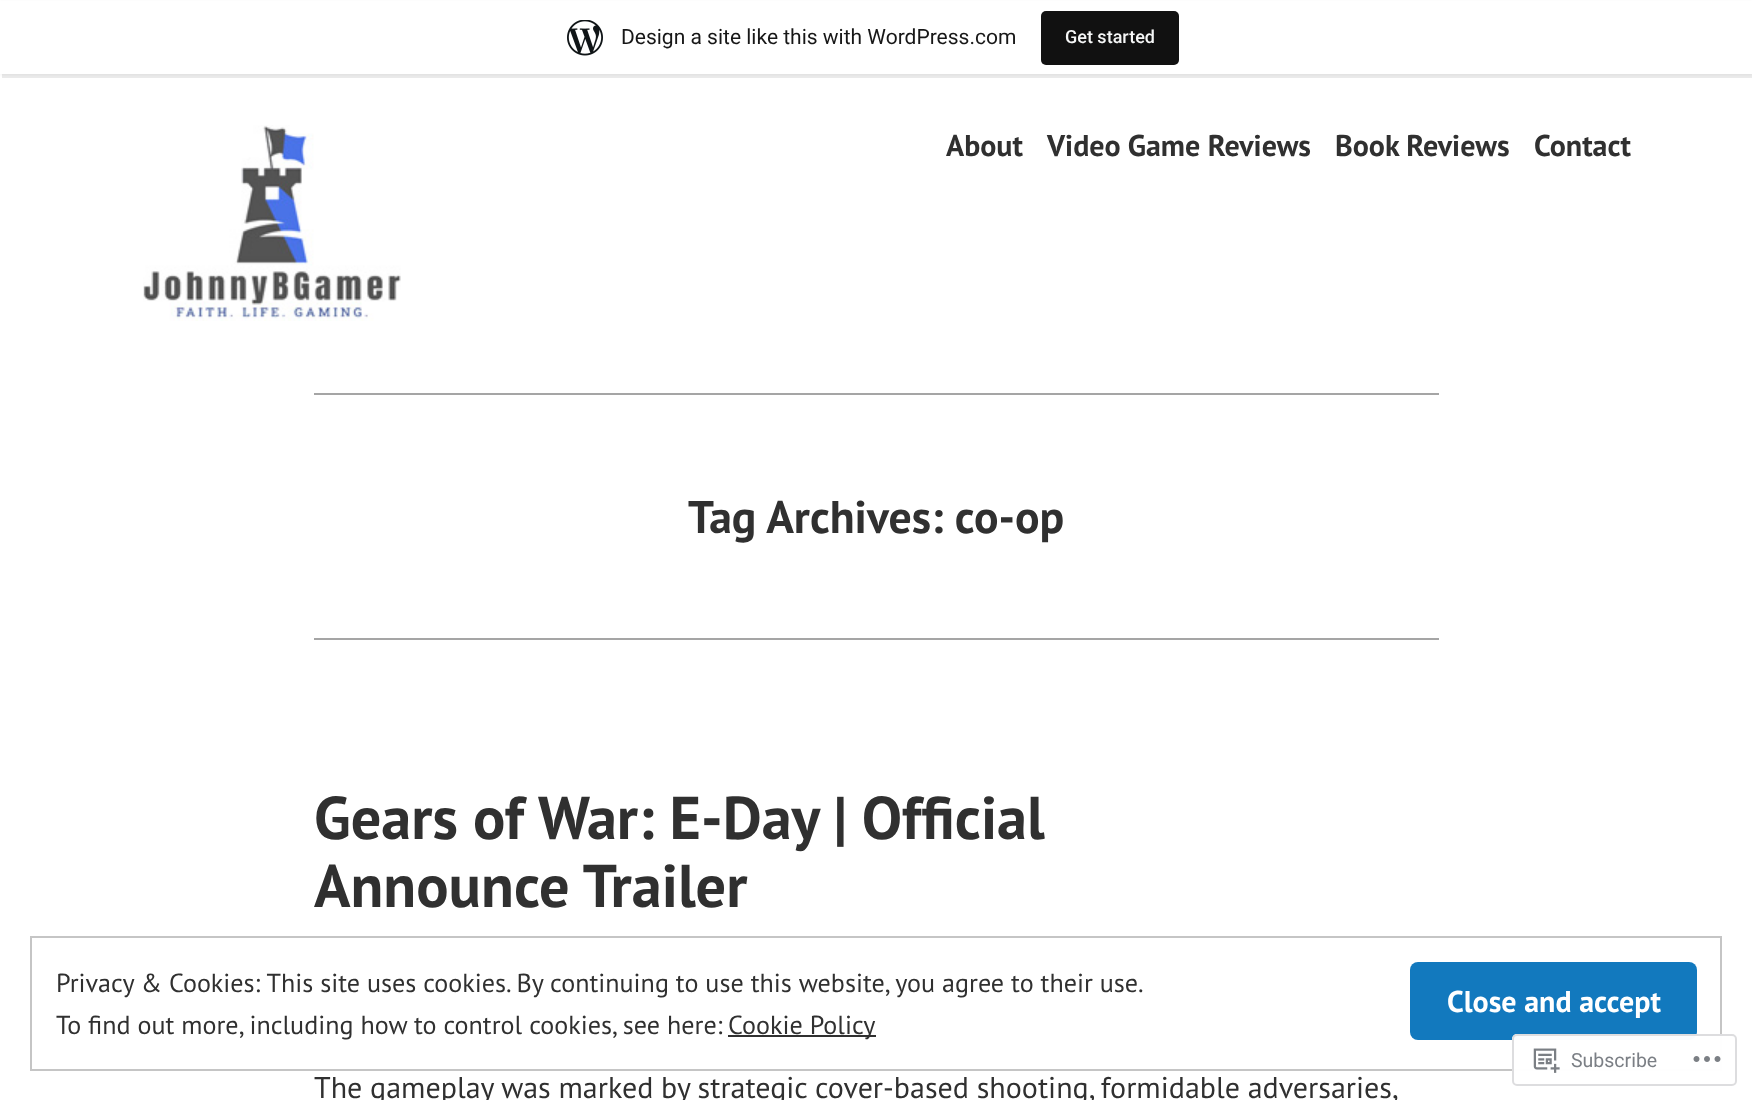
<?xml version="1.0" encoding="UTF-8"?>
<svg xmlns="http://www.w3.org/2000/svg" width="1752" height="1100">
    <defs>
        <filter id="blur1" x="-50%" y="-200%" width="200%" height="500%"><feGaussianBlur stdDeviation="1.5"/></filter>
    </defs>
    <rect width="100%" height="100%" fill="#FFFFFF"/>
    <rect x="0" y="2" width="1752" height="73" fill="#000000" fill-opacity="0.05" filter="url(#blur1)"/>
    <path d="M 2 74 V 78 H 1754 V 5 H 1752 V 74 Z" fill="#000000" fill-opacity="0.08"/>
    <rect x="0" y="1" width="1752" height="73" fill="#FFFFFF"/>
    <image x="567" y="20" width="36" height="36" href="img_01.png"/>
    <text x="621" y="44" font-family="Roboto" font-size="21" fill="#171717">Design a site like this with WordPress.com</text>
    <rect x="1041" y="11" width="138" height="54" rx="5" fill="#111111"/>
    <text x="1065" y="43" font-family="Roboto" font-size="18" font-weight="500" fill="#F6F7F7">Get started</text>
    <image x="143" y="125" width="258" height="196" href="img_02.png"/>
    <text x="946" y="156" font-family="PT Sans" font-size="30" font-weight="700" fill="#303030">About</text>
    <text x="1047" y="156" font-family="PT Sans" font-size="30" font-weight="700" fill="#303030">Video Game Reviews</text>
    <text x="1335" y="156" font-family="PT Sans" font-size="30" font-weight="700" fill="#303030">Book Reviews</text>
    <text x="1534" y="156" font-family="PT Sans" font-size="30" font-weight="700" fill="#303030">Contact</text>
    <rect x="314" y="393" width="1125" height="2" fill="#A5A5A5"/>
    <text x="688" y="533" font-family="PT Sans" font-size="45.75" font-weight="700" fill="#303030">Tag Archives: co-op</text>
    <rect x="314" y="638" width="1125" height="2" fill="#A5A5A5"/>
    <text font-family="PT Sans" font-size="60.3" font-weight="700" fill="#303030">
        <tspan x="314" y="839">Gears of War: E-Day | Official</tspan>
        <tspan x="314" y="907">Announce Trailer</tspan>
    </text>
    <text x="314" y="1098" word-spacing="-0.25" font-family="PT Sans" font-size="30" fill="#303030">The gameplay was marked by strategic cover-based shooting, formidable adversaries,</text>
    <rect x="31" y="937" width="1690" height="133" fill="none" stroke="#C5C5C5" stroke-width="2"/>
    <text x="56" y="992" font-family="PT Sans" font-size="26.1" fill="#303030">Privacy &amp; Cookies: This site uses cookies. By continuing to use this website, you agree to their use.</text>
    <rect x="1410" y="962" width="287" height="78" rx="8" fill="#1279BE"/>
    <text x="1447" y="1012" font-family="PT Sans" font-size="30" font-weight="700" fill="#FFFFFF">Close and accept</text>
    <text x="56" y="1034" font-family="PT Sans" font-size="26.1" fill="#303030">To find out more, including how to control cookies, see here:</text>
    <rect x="728" y="1035" width="148" height="2" fill="#303030"/>
    <text x="728" y="1034" font-family="PT Sans" font-size="26.1" fill="#303030">Cookie Policy</text>
    <rect x="1512" y="1034" width="225" height="52" rx="5" fill="#FFFFFF" fill-opacity="0.98"/>
    <rect x="1513" y="1035" width="223" height="50" rx="4" fill="none" stroke="#DCDCDE" stroke-opacity="0.98" stroke-width="2"/>
    <image x="1533" y="1048" width="27" height="25" href="img_03.png"/>
    <text x="1571" y="1067" font-family="Roboto" font-size="19.5" fill="#7B7F85">Subscribe</text>
    <image x="1693" y="1056" width="28" height="6" href="img_04.png"/>
</svg>
